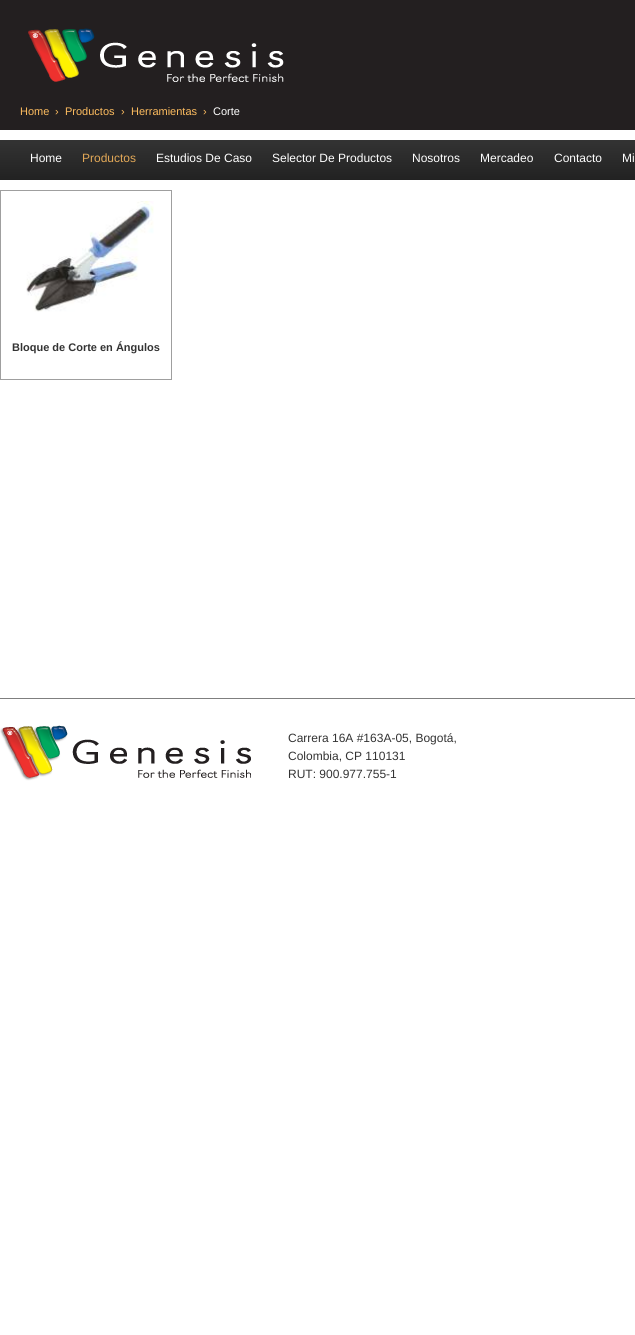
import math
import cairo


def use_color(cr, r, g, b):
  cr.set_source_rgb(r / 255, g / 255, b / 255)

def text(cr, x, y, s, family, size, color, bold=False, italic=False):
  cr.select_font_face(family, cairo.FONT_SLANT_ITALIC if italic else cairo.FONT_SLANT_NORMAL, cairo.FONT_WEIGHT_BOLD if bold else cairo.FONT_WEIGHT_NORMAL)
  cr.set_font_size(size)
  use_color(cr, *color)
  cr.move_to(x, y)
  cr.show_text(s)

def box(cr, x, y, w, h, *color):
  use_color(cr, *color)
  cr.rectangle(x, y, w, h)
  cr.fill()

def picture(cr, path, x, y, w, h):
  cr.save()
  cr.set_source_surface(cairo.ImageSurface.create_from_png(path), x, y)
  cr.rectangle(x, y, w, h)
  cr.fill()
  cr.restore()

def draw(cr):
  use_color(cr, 255, 255, 255)
  cr.paint()
  box(cr, 0, 0, 635, 130, 35, 31, 32)
  picture(cr, "img_01.png", 28, 28, 256, 54)
  gradient = cairo.LinearGradient(470, 140, 470, 180)
  gradient.add_color_stop_rgba(0, 0.2, 0.2, 0.2, 1)
  gradient.add_color_stop_rgba(1, 0.133, 0.133, 0.133, 1)
  cr.set_source(gradient)
  cr.rectangle(0, 140, 635, 40)
  cr.fill()
  cr.rectangle(0.5, 190.5, 171, 189)
  use_color(cr, 159, 159, 159)
  cr.set_line_width(1)
  cr.stroke()
  picture(cr, "img_02.png", 26, 201, 128, 111)
  box(cr, 0, 698, 635, 1, 127, 127, 127)
  picture(cr, "img_03.png", 0, 725, 251, 56)
  text(cr, 20, 115, "Home", "Liberation Sans", 11, (253, 188, 95))
  text(cr, 55, 115, "›", "Liberation Sans", 11, (253, 188, 95))
  text(cr, 65, 115, "Productos", "Liberation Sans", 11, (253, 188, 95))
  text(cr, 121, 115, "›", "Liberation Sans", 11, (253, 188, 95))
  text(cr, 131, 115, "Herramientas", "Liberation Sans", 11, (253, 188, 95))
  text(cr, 203, 115, "›", "Liberation Sans", 11, (253, 188, 95))
  text(cr, 213, 115, "Corte", "Liberation Sans", 11, (255, 255, 255))
  text(cr, 30, 162, "Home", "Liberation Sans", 12, (255, 255, 255))
  text(cr, 82, 162, "Productos", "Liberation Sans", 12, (226, 168, 87))
  text(cr, 156, 162, "Estudios De Caso", "Liberation Sans", 12, (255, 255, 255))
  text(cr, 272, 162, "Selector De Productos", "Liberation Sans", 12, (255, 255, 255))
  text(cr, 412, 162, "Nosotros", "Liberation Sans", 12, (255, 255, 255))
  text(cr, 480, 162, "Mercadeo", "Liberation Sans", 12, (255, 255, 255))
  text(cr, 554, 162, "Contacto", "Liberation Sans", 12, (255, 255, 255))
  text(cr, 622, 162, "Mi", "Liberation Sans", 12, (255, 255, 255))
  text(cr, 12, 351, "Bloque de Corte en Ángulos", "Liberation Sans", 11, (51, 51, 51), bold=True)
  text(cr, 288, 742, "Carrera 16A #163A-05, Bogotá,", "Liberation Sans", 12, (51, 51, 51))
  text(cr, 288, 760, "Colombia, CP 110131", "Liberation Sans", 12, (51, 51, 51))
  text(cr, 288, 778, "RUT: 900.977.755-1", "Liberation Sans", 12, (51, 51, 51))


surface = cairo.ImageSurface(cairo.FORMAT_RGB24, 635, 1335)
cr = cairo.Context(surface)
options = cairo.FontOptions()
options.set_hint_metrics(cairo.HINT_METRICS_OFF)
options.set_hint_style(cairo.HINT_STYLE_NONE)
cr.set_font_options(options)
cr.set_miter_limit(4)
draw(cr)
surface.write_to_png("out.png")
